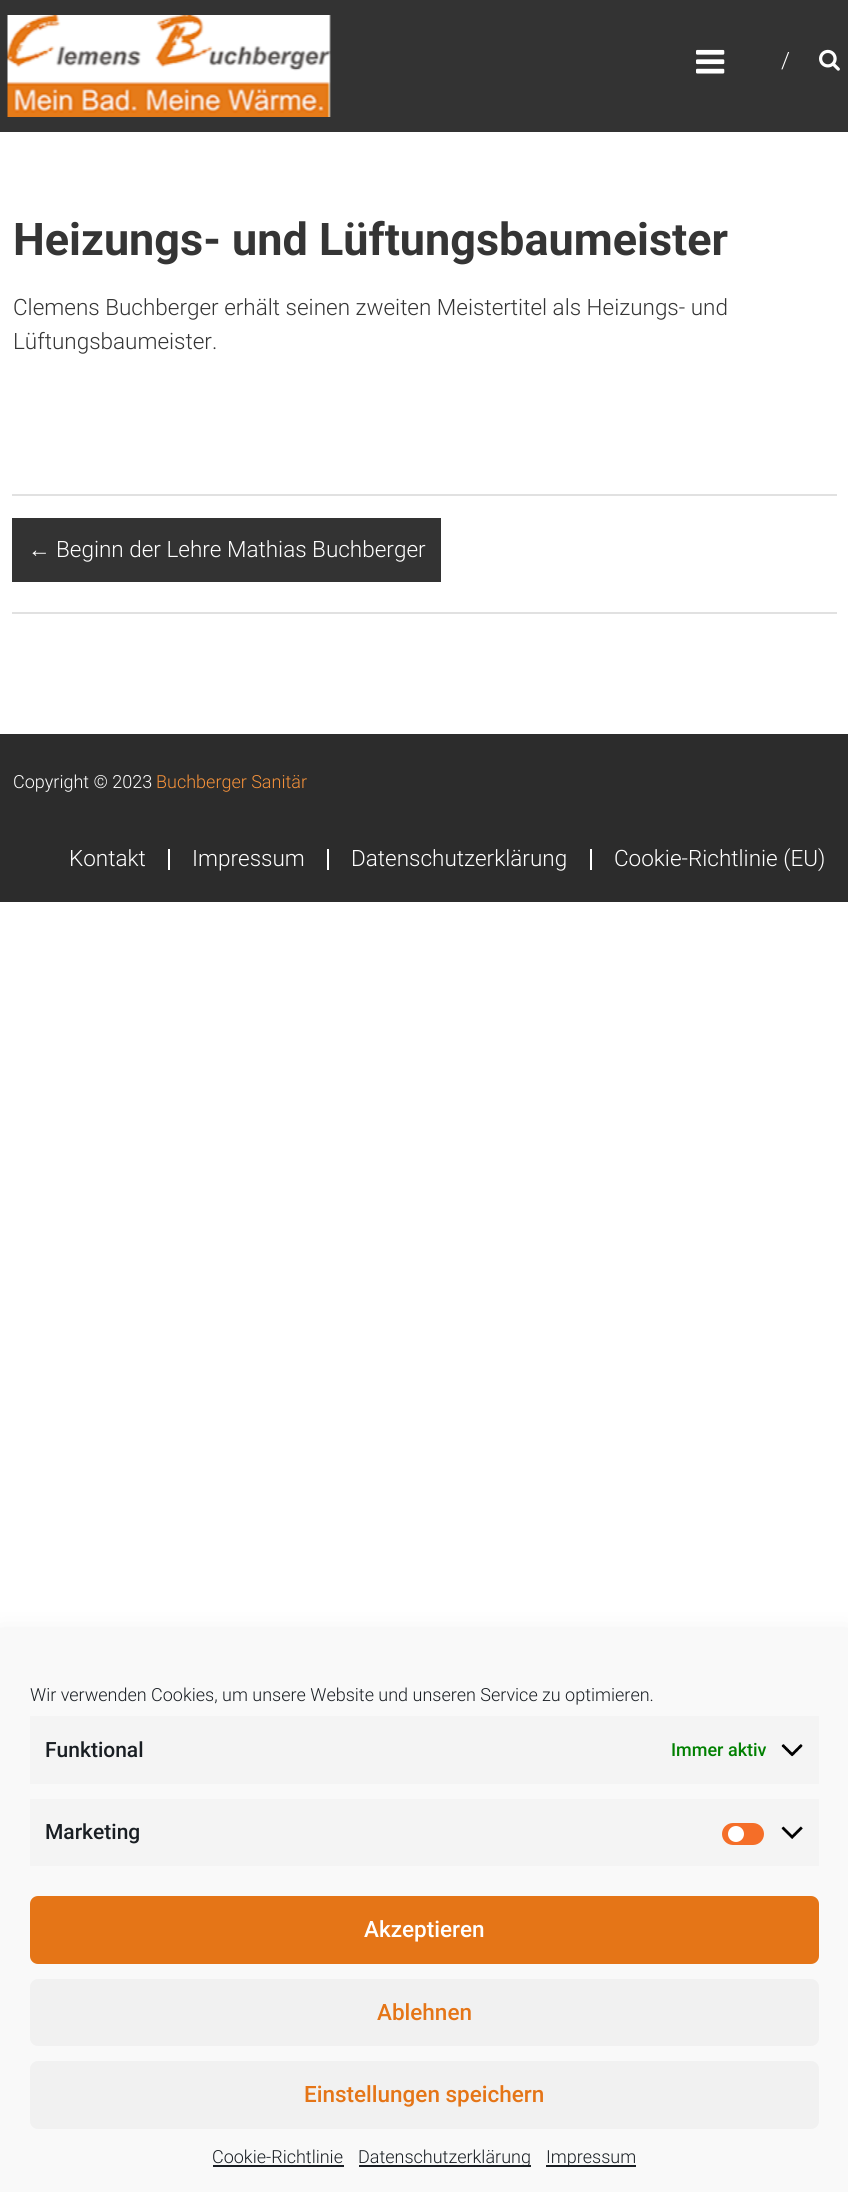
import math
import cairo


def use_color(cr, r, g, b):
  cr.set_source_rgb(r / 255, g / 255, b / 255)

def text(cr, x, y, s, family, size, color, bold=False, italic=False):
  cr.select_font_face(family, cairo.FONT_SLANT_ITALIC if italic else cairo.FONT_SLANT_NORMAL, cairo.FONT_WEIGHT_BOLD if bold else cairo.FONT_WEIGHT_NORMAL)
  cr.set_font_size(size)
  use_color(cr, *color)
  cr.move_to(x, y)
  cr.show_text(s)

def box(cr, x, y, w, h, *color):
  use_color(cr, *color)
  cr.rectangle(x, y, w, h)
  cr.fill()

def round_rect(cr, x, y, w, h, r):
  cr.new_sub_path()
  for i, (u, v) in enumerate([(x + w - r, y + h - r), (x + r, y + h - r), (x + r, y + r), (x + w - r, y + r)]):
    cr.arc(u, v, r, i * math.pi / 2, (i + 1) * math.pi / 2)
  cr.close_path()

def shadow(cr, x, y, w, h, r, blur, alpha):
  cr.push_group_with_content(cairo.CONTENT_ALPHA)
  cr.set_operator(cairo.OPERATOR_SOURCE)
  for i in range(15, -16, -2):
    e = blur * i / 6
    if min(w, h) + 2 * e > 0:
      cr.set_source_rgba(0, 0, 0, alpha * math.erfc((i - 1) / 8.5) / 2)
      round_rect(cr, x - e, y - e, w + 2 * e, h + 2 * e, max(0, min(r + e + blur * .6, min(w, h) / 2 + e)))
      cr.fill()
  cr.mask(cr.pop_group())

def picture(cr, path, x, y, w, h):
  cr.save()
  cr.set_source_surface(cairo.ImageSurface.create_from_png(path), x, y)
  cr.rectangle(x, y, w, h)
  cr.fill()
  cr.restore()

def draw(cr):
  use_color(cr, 255, 255, 255)
  cr.paint()
  box(cr, 0, 0, 848, 132, 51, 51, 51)
  picture(cr, "img_01.png", 7, 15, 324, 102)
  picture(cr, "img_02.png", 696, 49, 29, 25)
  picture(cr, "img_03.png", 819, 49, 21, 22)
  box(cr, 12, 494, 825, 2, 225, 225, 225)
  box(cr, 12, 612, 825, 2, 225, 225, 225)
  box(cr, 12, 518, 429, 64, 51, 51, 51)
  box(cr, 0, 734, 848, 168, 44, 44, 44)
  box(cr, 168, 849, 2, 21, 255, 255, 255)
  box(cr, 327, 849, 2, 21, 255, 255, 255)
  box(cr, 590, 849, 2, 21, 255, 255, 255)
  use_color(cr, 0, 0, 0)
  shadow(cr, 0, 1644, 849, 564, 0, 15, 0.19)
  box(cr, 0, 1630, 848, 562, 249, 249, 249)
  box(cr, 30, 1716, 789, 68, 244, 244, 244)
  picture(cr, "img_04.png", 781, 1744, 22, 13)
  box(cr, 30, 1799, 789, 67, 244, 244, 244)
  use_color(cr, 245, 110, 40)
  round_rect(cr, 722, 1823, 42, 22, 11)
  cr.fill()
  use_color(cr, 255, 255, 255)
  cr.arc(736, 1834, 8, 0, 2 * math.pi)
  cr.fill()
  picture(cr, "img_05.png", 781, 1826, 22, 13)
  use_color(cr, 229, 117, 23)
  round_rect(cr, 31, 1897, 787, 66, 7)
  cr.fill_preserve()
  cr.stroke()
  use_color(cr, 241, 241, 241)
  round_rect(cr, 30, 1979, 789, 67, 8)
  cr.fill()
  round_rect(cr, 30, 2061, 789, 68, 8)
  cr.fill()
  box(cr, 213, 2165, 131, 2, 25, 30, 35)
  box(cr, 359, 2165, 172, 2, 25, 30, 35)
  box(cr, 546, 2165, 90, 2, 25, 30, 35)
  text(cr, 781, 68, "/", "Roboto Light", 22.5, (255, 255, 255))
  text(cr, 13, 255, "Heizungs- und Lüftungsbaumeister", "Roboto", 45, (53, 53, 53), bold=True)
  text(cr, 13, 315, "Clemens Buchberger erhält seinen zweiten Meistertitel als Heizungs- und", "Roboto Light", 22.5, (53, 53, 53))
  text(cr, 13, 349, "Lüftungsbaumeister.", "Roboto Light", 22.5, (53, 53, 53))
  text(cr, 28, 557, "←", "Liberation Sans", 22.5, (255, 255, 255))
  text(cr, 56, 557, "Beginn der Lehre Mathias Buchberger", "Roboto Light", 22.5, (255, 255, 255))
  text(cr, 13, 788, "Copyright © 2023", "Roboto Light", 18, (255, 255, 255))
  text(cr, 156, 788, "Buchberger Sanitär", "Roboto Light", 18, (244, 145, 58))
  text(cr, 69, 866, "Kontakt", "Roboto Light", 22.5, (255, 255, 255))
  text(cr, 192, 866, "Impressum", "Roboto Light", 22.5, (255, 255, 255))
  text(cr, 351, 866, "Datenschutzerklärung", "Roboto Light", 22.5, (255, 255, 255))
  text(cr, 614, 866, "Cookie-Richtlinie (EU)", "Roboto Light", 22.5, (255, 255, 255))
  text(cr, 30, 1701, "Wir verwenden Cookies, um unsere Website und unseren Service zu optimieren.", "Roboto Light", 18, (25, 30, 35))
  text(cr, 45, 1757, "Funktional", "Roboto Medium", 21, (25, 30, 35))
  text(cr, 671, 1756, "Immer aktiv", "Roboto Medium", 18, (0, 128, 0))
  text(cr, 45, 1839, "Marketing", "Roboto Medium", 21, (25, 30, 35))
  text(cr, 364, 1937, "Akzeptieren", "Roboto Medium", 22.5, (255, 255, 255))
  text(cr, 377, 2020, "Ablehnen", "Roboto Medium", 22.5, (229, 117, 23))
  text(cr, 304, 2102, "Einstellungen speichern", "Roboto Medium", 22.5, (229, 117, 23))
  text(cr, 212, 2163, "Cookie-Richtlinie", "Roboto Light", 18, (25, 30, 35))
  text(cr, 358, 2163, "Datenschutzerklärung", "Roboto Light", 18, (25, 30, 35))
  text(cr, 546, 2163, "Impressum", "Roboto Light", 18, (25, 30, 35))


surface = cairo.ImageSurface(cairo.FORMAT_RGB24, 848, 2192)
cr = cairo.Context(surface)
options = cairo.FontOptions()
options.set_hint_metrics(cairo.HINT_METRICS_OFF)
options.set_hint_style(cairo.HINT_STYLE_NONE)
cr.set_font_options(options)
cr.set_miter_limit(4)
draw(cr)
surface.write_to_png("out.png")
